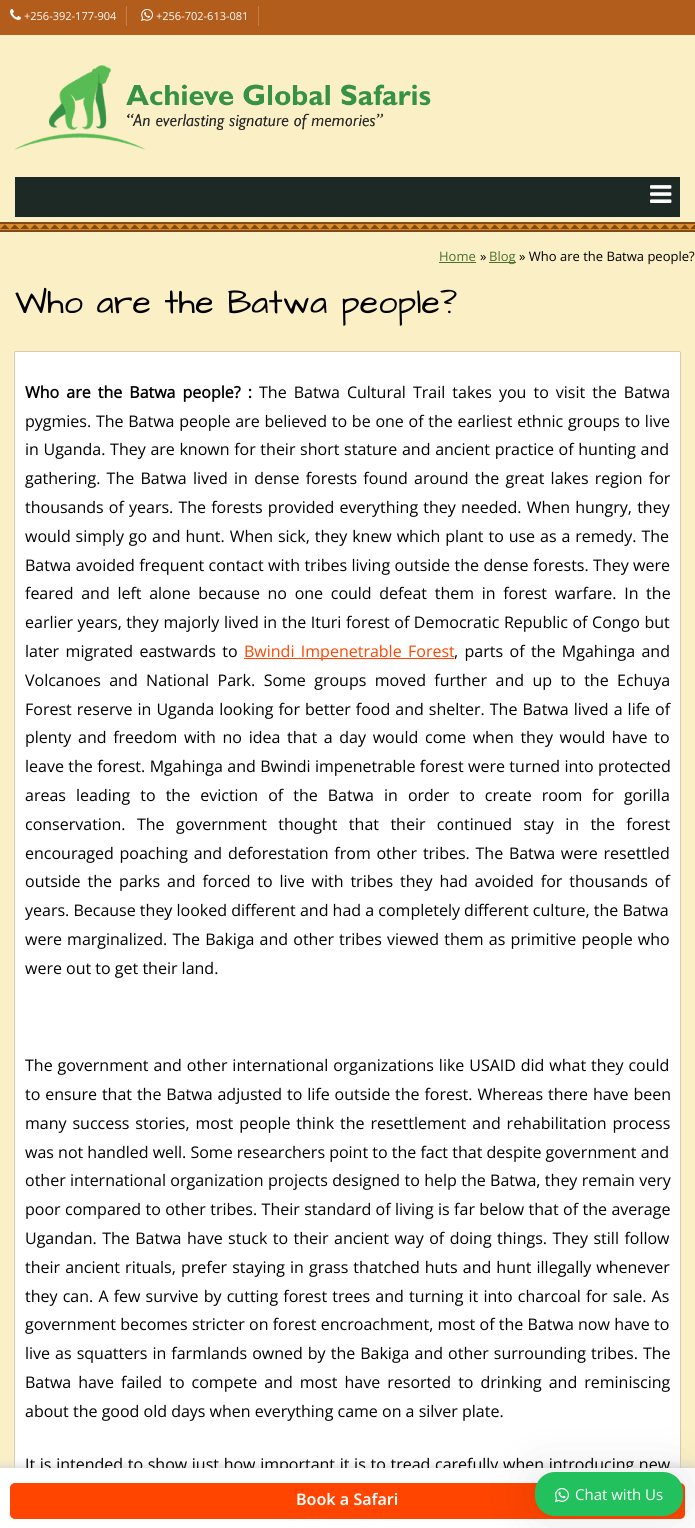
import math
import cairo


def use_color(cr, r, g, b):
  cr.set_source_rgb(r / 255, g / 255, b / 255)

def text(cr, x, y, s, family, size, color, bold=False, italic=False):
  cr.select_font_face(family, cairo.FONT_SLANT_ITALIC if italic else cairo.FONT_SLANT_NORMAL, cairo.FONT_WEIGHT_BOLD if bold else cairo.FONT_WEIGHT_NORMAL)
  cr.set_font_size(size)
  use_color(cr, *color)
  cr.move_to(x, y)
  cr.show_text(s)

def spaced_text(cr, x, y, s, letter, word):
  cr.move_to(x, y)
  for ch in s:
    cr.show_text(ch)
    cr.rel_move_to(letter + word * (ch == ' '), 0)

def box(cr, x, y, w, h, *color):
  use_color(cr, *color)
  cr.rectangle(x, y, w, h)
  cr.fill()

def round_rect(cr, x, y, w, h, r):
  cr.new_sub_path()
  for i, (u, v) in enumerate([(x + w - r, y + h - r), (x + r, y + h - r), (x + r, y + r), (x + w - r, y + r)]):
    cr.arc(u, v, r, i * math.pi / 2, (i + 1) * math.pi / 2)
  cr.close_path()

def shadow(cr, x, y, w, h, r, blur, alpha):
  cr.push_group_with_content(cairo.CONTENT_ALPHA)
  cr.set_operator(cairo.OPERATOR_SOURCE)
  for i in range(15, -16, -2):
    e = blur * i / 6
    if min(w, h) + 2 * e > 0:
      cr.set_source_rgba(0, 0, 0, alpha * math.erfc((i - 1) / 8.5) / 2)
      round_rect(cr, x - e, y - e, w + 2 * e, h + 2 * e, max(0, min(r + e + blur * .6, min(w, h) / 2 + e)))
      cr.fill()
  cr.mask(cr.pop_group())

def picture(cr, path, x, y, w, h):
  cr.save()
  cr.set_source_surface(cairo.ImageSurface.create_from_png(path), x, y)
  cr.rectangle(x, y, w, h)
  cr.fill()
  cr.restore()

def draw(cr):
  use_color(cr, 251, 239, 197)
  cr.paint()
  box(cr, 0, 0, 695, 35, 179, 93, 28)
  box(cr, 126, 6, 1, 20, 194, 125, 73)
  picture(cr, "img_01.png", 10, 9, 11, 11)
  box(cr, 258, 6, 1, 20, 194, 125, 73)
  picture(cr, "img_02.png", 141, 9, 12, 12)
  picture(cr, "img_03.png", 15, 65, 416, 85)
  box(cr, 15, 177, 665, 40, 28, 41, 37)
  picture(cr, "img_04.png", 650, 185, 22, 18)
  picture(cr, "img_05.png", 0, 222, 695, 10)
  box(cr, 439, 262, 37, 1, 74, 113, 46)
  box(cr, 489, 262, 27, 1, 74, 113, 46)
  use_color(cr, 102, 102, 102)
  shadow(cr, 15, 352, 665, 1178, 0, 0.5, 1)
  box(cr, 15, 352, 665, 1116, 255, 255, 255)
  box(cr, 244, 658, 210, 1, 255, 69, 0)
  use_color(cr, 208, 208, 208)
  shadow(cr, 0, 1467, 695, 60, 0, 5, 1)
  text(cr, 24, 20, "+256-392-177-904", "Open Sans", 11, (255, 255, 255))
  text(cr, 156, 20, "+256-702-613-081", "Open Sans", 11, (255, 255, 255))
  text(cr, 439, 261, "Home", "Open Sans", 13, (74, 113, 46))
  text(cr, 480, 261, "»", "Open Sans", 13, (0, 0, 0))
  text(cr, 489, 261, "Blog", "Open Sans", 13, (74, 113, 46))
  text(cr, 519, 261, "» Who are the Batwa people?", "Open Sans", 13, (0, 0, 0))
  text(cr, 15, 313, "Who are the Batwa people?", "Architects Daughter", 34, (0, 0, 0))
  cr.select_font_face("Open Sans", cairo.FONT_SLANT_NORMAL, cairo.FONT_WEIGHT_BOLD)
  cr.set_font_size(16)
  spaced_text(cr, 25, 398, "Who are the Batwa people? :", 0, 2.9)
  cr.select_font_face("Open Sans")
  spaced_text(cr, 259, 398, "The Batwa Cultural Trail takes you to visit the Batwa", 0, 2.9)
  spaced_text(cr, 25, 427, "pygmies. The Batwa people are believed to be one of the earliest ethnic groups to live", 0, 0.6)
  spaced_text(cr, 25, 455, "in Uganda. They are known for their short stature and ancient practice of hunting and", 0, 0.5)
  spaced_text(cr, 25, 484, "gathering. The Batwa lived in dense forests found around the great lakes region for", 0, 2.1)
  spaced_text(cr, 25, 513, "thousands of years. The forests provided everything they needed. When hungry, they", 0, 1)
  spaced_text(cr, 25, 542, "would simply go and hunt. When sick, they knew which plant to use as a remedy. The", 0, 0.75)
  spaced_text(cr, 25, 571, "Batwa avoided frequent contact with tribes living outside the dense forests. They were", 0, 0.25)
  spaced_text(cr, 25, 599, "feared and left alone because no one could defeat them in forest warfare. In the", 0, 3.5)
  spaced_text(cr, 25, 628, "earlier years, they majorly lived in the Ituri forest of Democratic Republic of Congo but", 0, 0.4)
  spaced_text(cr, 25, 657, "later migrated eastwards to", 0, 2.25)
  use_color(cr, 255, 69, 0)
  spaced_text(cr, 244, 657, "Bwindi Impenetrable Forest", 0, 2.25)
  use_color(cr, 0, 0, 0)
  spaced_text(cr, 454, 657, ", parts of the Mgahinga and", 0, 2.25)
  spaced_text(cr, 25, 686, "Volcanoes and National Park. Some groups moved further and up to the Echuya", 0, 4.25)
  spaced_text(cr, 25, 715, "Forest reserve in Uganda looking for better food and shelter. The Batwa lived a life of", 0, 0.9)
  spaced_text(cr, 25, 743, "plenty and freedom with no idea that a day would come when they would have to", 0, 2.5)
  spaced_text(cr, 25, 772, "leave the forest. Mgahinga and Bwindi impenetrable forest were turned into protected", 0, 0.25)
  spaced_text(cr, 25, 801, "areas leading to the eviction of the Batwa in order to create room for gorilla", 0, 5.9)
  spaced_text(cr, 25, 830, "conservation. The government thought that their continued stay in the forest", 0, 7.25)
  spaced_text(cr, 25, 859, "encouraged poaching and deforestation from other tribes. The Batwa were resettled", 0, 1.6)
  spaced_text(cr, 25, 887, "outside the parks and forced to live with tribes they had avoided for thousands of", 0, 2.75)
  text(cr, 25, 916, "years. Because they looked different and had a completely different culture, the Batwa", "Open Sans", 16, (0, 0, 0))
  spaced_text(cr, 25, 945, "were marginalized. The Bakiga and other tribes viewed them as primitive people who", 0, 1)
  text(cr, 25, 974, "were out to get their land.", "Open Sans", 16, (0, 0, 0))
  spaced_text(cr, 25, 1071, "The government and other international organizations like USAID did what they could", 0, 0.75)
  spaced_text(cr, 25, 1100, "to ensure that the Batwa adjusted to life outside the forest. Whereas there have been", 0, 0.75)
  spaced_text(cr, 25, 1129, "many success stories, most people think the resettlement and rehabilitation process", 0, 1.75)
  text(cr, 25, 1158, "was not handled well. Some researchers point to the fact that despite government and", "Open Sans", 16, (0, 0, 0))
  spaced_text(cr, 25, 1186, "other international organization projects designed to help the Batwa, they remain very", 0, 0.25)
  spaced_text(cr, 25, 1215, "poor compared to other tribes. Their standard of living is far below that of the average", 0, 0.25)
  spaced_text(cr, 25, 1244, "Ugandan. The Batwa have stuck to their ancient way of doing things. They still follow", 0, 1.3)
  spaced_text(cr, 25, 1273, "their ancient rituals, prefer staying in grass thatched huts and hunt illegally whenever", 0, 0.9)
  spaced_text(cr, 25, 1302, "they can. A few survive by cutting forest trees and turning it into charcoal for sale. As", 0, 1)
  spaced_text(cr, 25, 1330, "government becomes stricter on forest encroachment, most of the Batwa now have to", 0, 0.1)
  spaced_text(cr, 25, 1359, "live as squatters in farmlands owned by the Bakiga and other surrounding tribes. The", 0, 0.9)
  spaced_text(cr, 25, 1388, "Batwa have failed to compete and most have resorted to drinking and reminiscing", 0, 2.9)
  text(cr, 25, 1417, "about the good old days when everything came on a silver plate.", "Open Sans", 16, (0, 0, 0))
  spaced_text(cr, 25, 1470, "It is intended to show just how important it is to tread carefully when introducing new", 0, 0.5)
  box(cr, 0, 1468, 695, 60, 255, 255, 255)
  use_color(cr, 255, 69, 0)
  round_rect(cr, 10, 1483, 675, 36, 5)
  cr.fill()
  text(cr, 296, 1505, "Book a Safari", "Noto Sans SemiBold", 16, (255, 255, 255))
  use_color(cr, 0, 0, 0)
  shadow(cr, 535, 1472, 148, 44, 20, 25, 0.1)
  use_color(cr, 34, 193, 94)
  round_rect(cr, 535, 1472, 148, 44, 20)
  cr.fill()
  picture(cr, "img_06.png", 555, 1488, 14, 14)
  text(cr, 575, 1500, "Chat with Us", "Open Sans", 15, (255, 255, 255))


surface = cairo.ImageSurface(cairo.FORMAT_RGB24, 695, 1528)
cr = cairo.Context(surface)
options = cairo.FontOptions()
options.set_hint_metrics(cairo.HINT_METRICS_OFF)
options.set_hint_style(cairo.HINT_STYLE_NONE)
cr.set_font_options(options)
cr.set_miter_limit(4)
draw(cr)
surface.write_to_png("out.png")
